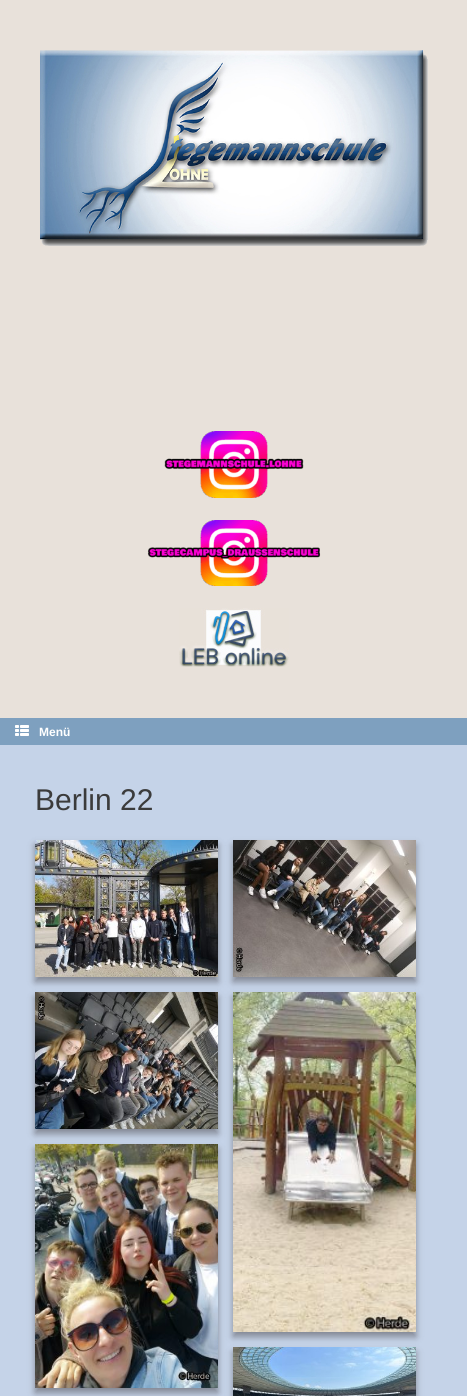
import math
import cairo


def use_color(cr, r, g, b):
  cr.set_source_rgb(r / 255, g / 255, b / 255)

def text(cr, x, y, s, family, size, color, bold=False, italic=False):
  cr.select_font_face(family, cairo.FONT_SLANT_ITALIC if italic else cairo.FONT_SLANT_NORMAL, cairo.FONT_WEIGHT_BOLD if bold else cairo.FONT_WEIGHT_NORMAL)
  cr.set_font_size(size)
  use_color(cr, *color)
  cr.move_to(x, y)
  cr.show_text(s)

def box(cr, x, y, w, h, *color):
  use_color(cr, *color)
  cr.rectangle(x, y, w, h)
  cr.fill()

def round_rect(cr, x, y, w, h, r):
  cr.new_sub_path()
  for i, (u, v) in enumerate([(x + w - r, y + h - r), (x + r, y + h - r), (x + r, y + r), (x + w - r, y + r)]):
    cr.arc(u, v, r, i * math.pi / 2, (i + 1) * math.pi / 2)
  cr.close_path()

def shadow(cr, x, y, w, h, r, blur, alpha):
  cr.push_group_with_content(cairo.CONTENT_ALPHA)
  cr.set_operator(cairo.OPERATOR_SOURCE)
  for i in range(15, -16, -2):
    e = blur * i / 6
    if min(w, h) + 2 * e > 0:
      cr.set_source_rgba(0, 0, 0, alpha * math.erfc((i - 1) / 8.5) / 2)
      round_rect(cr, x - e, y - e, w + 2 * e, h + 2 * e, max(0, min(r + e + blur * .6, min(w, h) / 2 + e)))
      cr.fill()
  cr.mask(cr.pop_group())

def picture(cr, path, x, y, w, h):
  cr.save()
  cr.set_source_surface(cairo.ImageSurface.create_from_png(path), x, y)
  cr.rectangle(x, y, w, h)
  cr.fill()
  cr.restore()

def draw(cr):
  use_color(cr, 232, 225, 218)
  cr.paint()
  picture(cr, "img_01.png", 40, 50, 388, 196)
  picture(cr, "img_02.png", 164, 431, 140, 67)
  picture(cr, "img_03.png", 147, 520, 174, 66)
  picture(cr, "img_04.png", 179, 608, 110, 59)
  box(cr, 0, 718, 467, 27, 126, 160, 191)
  picture(cr, "img_05.png", 15, 725, 14, 11)
  box(cr, 0, 745, 467, 651, 197, 211, 232)
  use_color(cr, 34, 25, 25)
  shadow(cr, 35, 845, 183, 137, 0, 3.5, 0.4)
  picture(cr, "img_06.png", 35, 840, 183, 137)
  shadow(cr, 233, 845, 183, 137, 0, 3.5, 0.4)
  picture(cr, "img_07.png", 233, 840, 183, 137)
  shadow(cr, 35, 997, 183, 137, 0, 3.5, 0.4)
  picture(cr, "img_08.png", 35, 992, 183, 137)
  shadow(cr, 233, 997, 183, 340, 0, 3.5, 0.4)
  picture(cr, "img_09.png", 233, 992, 183, 340)
  shadow(cr, 35, 1149, 183, 244, 0, 3.5, 0.4)
  picture(cr, "img_10.png", 35, 1144, 183, 244)
  shadow(cr, 233, 1352, 183, 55, 0, 3.5, 0.4)
  picture(cr, "img_11.png", 233, 1347, 183, 49)
  text(cr, 39, 736, "Menü", "Liberation Sans", 12, (255, 255, 255), bold=True)
  text(cr, 35, 810, "Berlin 22", "Liberation Sans", 30, (59, 59, 59))


surface = cairo.ImageSurface(cairo.FORMAT_RGB24, 467, 1396)
cr = cairo.Context(surface)
options = cairo.FontOptions()
options.set_hint_metrics(cairo.HINT_METRICS_OFF)
options.set_hint_style(cairo.HINT_STYLE_NONE)
cr.set_font_options(options)
cr.set_miter_limit(4)
draw(cr)
surface.write_to_png("out.png")
